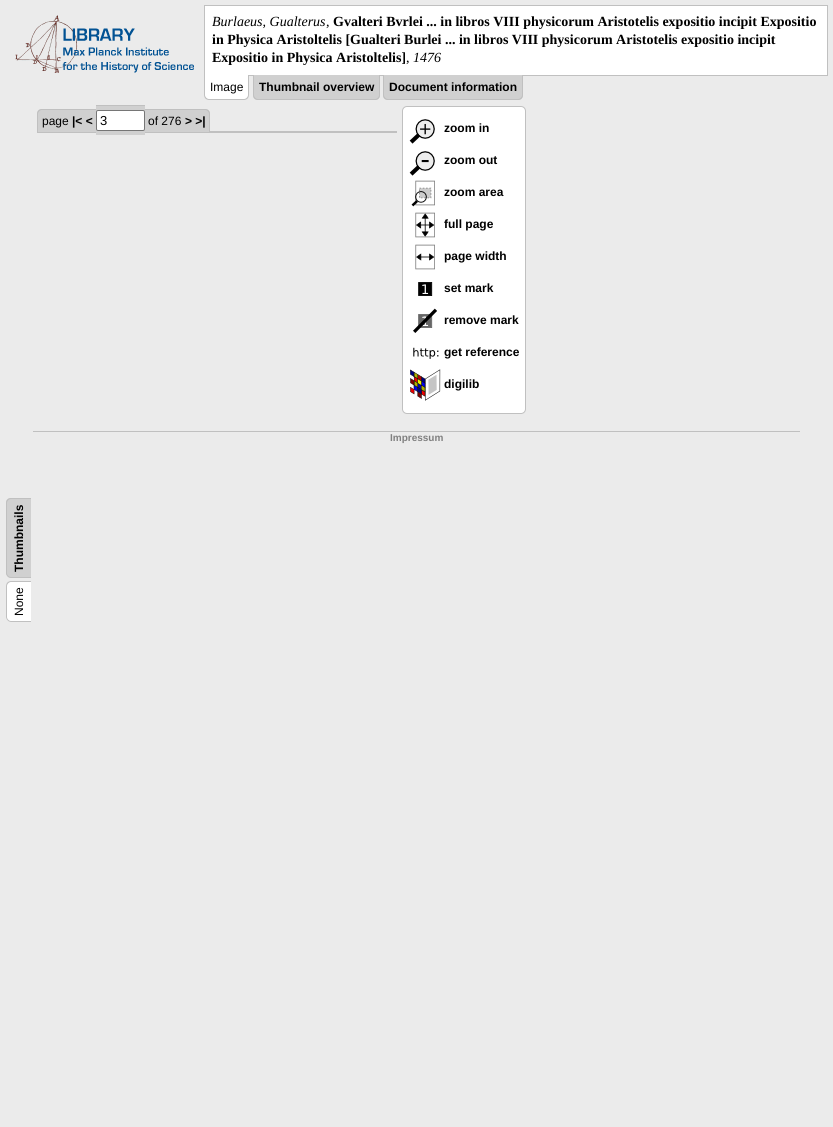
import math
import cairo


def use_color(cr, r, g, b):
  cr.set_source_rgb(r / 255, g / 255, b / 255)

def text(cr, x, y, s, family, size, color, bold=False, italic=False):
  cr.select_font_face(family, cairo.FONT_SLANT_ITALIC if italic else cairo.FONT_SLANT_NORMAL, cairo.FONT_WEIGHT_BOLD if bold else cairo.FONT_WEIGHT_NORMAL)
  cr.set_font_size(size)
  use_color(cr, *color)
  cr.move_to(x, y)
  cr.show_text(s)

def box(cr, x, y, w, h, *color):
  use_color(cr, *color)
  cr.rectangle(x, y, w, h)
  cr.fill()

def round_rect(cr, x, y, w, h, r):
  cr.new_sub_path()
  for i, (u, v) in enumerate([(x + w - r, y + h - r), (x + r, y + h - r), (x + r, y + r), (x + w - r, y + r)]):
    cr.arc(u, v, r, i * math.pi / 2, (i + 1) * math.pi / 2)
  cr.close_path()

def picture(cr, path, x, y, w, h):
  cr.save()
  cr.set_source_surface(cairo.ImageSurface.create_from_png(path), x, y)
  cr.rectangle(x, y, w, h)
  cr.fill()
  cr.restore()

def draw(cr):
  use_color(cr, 235, 235, 235)
  cr.paint()
  picture(cr, "img_01.png", 15, 15, 179, 58)
  use_color(cr, 255, 255, 255)
  cr.rectangle(204.5, 5.5, 623, 70)
  cr.fill_preserve()
  use_color(cr, 192, 192, 192)
  cr.set_line_width(1)
  cr.stroke()
  use_color(cr, 255, 255, 255)
  cr.new_path()
  cr.move_to(204, 75)
  cr.line_to(249, 75)
  cr.line_to(249, 95)
  cr.curve_to(249, 98, 247, 100, 244, 100)
  cr.line_to(209, 100)
  cr.curve_to(206, 100, 204, 98, 204, 95)
  cr.close_path()
  cr.fill()
  use_color(cr, 192, 192, 192)
  cr.set_fill_rule(cairo.FILL_RULE_EVEN_ODD)
  cr.new_path()
  cr.move_to(204, 75)
  cr.line_to(249, 75)
  cr.line_to(249, 95)
  cr.curve_to(249, 98, 247, 100, 244, 100)
  cr.line_to(209, 100)
  cr.curve_to(206, 100, 204, 98, 204, 95)
  cr.close_path()
  cr.move_to(205, 75)
  cr.line_to(248, 75)
  cr.line_to(248, 95)
  cr.curve_to(248, 97, 246, 99, 244, 99)
  cr.line_to(209, 99)
  cr.curve_to(207, 99, 205, 97, 205, 95)
  cr.close_path()
  cr.fill()
  use_color(cr, 208, 208, 208)
  cr.new_path()
  cr.move_to(253, 75)
  cr.line_to(380, 75)
  cr.line_to(380, 95)
  cr.curve_to(380, 98, 378, 100, 375, 100)
  cr.line_to(258, 100)
  cr.curve_to(255, 100, 253, 98, 253, 95)
  cr.close_path()
  cr.fill()
  use_color(cr, 192, 192, 192)
  cr.new_path()
  cr.move_to(253, 75)
  cr.line_to(380, 75)
  cr.line_to(380, 95)
  cr.curve_to(380, 98, 378, 100, 375, 100)
  cr.line_to(258, 100)
  cr.curve_to(255, 100, 253, 98, 253, 95)
  cr.close_path()
  cr.move_to(254, 75)
  cr.line_to(379, 75)
  cr.line_to(379, 95)
  cr.curve_to(379, 97, 377, 99, 375, 99)
  cr.line_to(258, 99)
  cr.curve_to(256, 99, 254, 97, 254, 95)
  cr.close_path()
  cr.fill()
  use_color(cr, 208, 208, 208)
  cr.new_path()
  cr.move_to(383, 75)
  cr.line_to(523, 75)
  cr.line_to(523, 95)
  cr.curve_to(523, 98, 521, 100, 518, 100)
  cr.line_to(388, 100)
  cr.curve_to(385, 100, 383, 98, 383, 95)
  cr.close_path()
  cr.fill()
  use_color(cr, 192, 192, 192)
  cr.new_path()
  cr.move_to(383, 75)
  cr.line_to(523, 75)
  cr.line_to(523, 95)
  cr.curve_to(523, 98, 521, 100, 518, 100)
  cr.line_to(388, 100)
  cr.curve_to(385, 100, 383, 98, 383, 95)
  cr.close_path()
  cr.move_to(384, 75)
  cr.line_to(522, 75)
  cr.line_to(522, 95)
  cr.curve_to(522, 97, 520, 99, 518, 99)
  cr.line_to(388, 99)
  cr.curve_to(386, 99, 384, 97, 384, 95)
  cr.close_path()
  cr.fill()
  box(cr, 37, 131, 360, 2, 192, 192, 192)
  use_color(cr, 208, 208, 208)
  cr.new_path()
  cr.move_to(42, 109)
  cr.line_to(72, 109)
  cr.line_to(72, 132)
  cr.line_to(37, 132)
  cr.line_to(37, 114)
  cr.curve_to(37, 111, 39, 109, 42, 109)
  cr.close_path()
  cr.fill()
  use_color(cr, 192, 192, 192)
  cr.new_path()
  cr.move_to(42, 109)
  cr.line_to(72, 109)
  cr.line_to(72, 132)
  cr.line_to(37, 132)
  cr.line_to(37, 114)
  cr.curve_to(37, 111, 39, 109, 42, 109)
  cr.close_path()
  cr.move_to(42, 110)
  cr.line_to(72, 110)
  cr.line_to(72, 132)
  cr.line_to(38, 132)
  cr.line_to(38, 114)
  cr.curve_to(38, 112, 40, 110, 42, 110)
  cr.close_path()
  cr.fill()
  box(cr, 72, 110, 10, 22, 208, 208, 208)
  box(cr, 72, 109, 10, 1, 192, 192, 192)
  box(cr, 82, 109, 14, 23, 208, 208, 208)
  box(cr, 82, 109, 14, 1, 192, 192, 192)
  box(cr, 96, 106, 49, 29, 208, 208, 208)
  box(cr, 96, 105, 49, 1, 192, 192, 192)
  box(cr, 145, 109, 3, 23, 208, 208, 208)
  box(cr, 145, 109, 40, 1, 192, 192, 192)
  box(cr, 148, 110, 37, 22, 208, 208, 208)
  box(cr, 185, 109, 10, 23, 208, 208, 208)
  box(cr, 185, 109, 10, 1, 192, 192, 192)
  use_color(cr, 208, 208, 208)
  cr.new_path()
  cr.move_to(195, 109)
  cr.line_to(205, 109)
  cr.curve_to(208, 109, 210, 111, 210, 114)
  cr.line_to(210, 132)
  cr.line_to(195, 132)
  cr.close_path()
  cr.fill()
  use_color(cr, 192, 192, 192)
  cr.new_path()
  cr.move_to(195, 109)
  cr.line_to(205, 109)
  cr.curve_to(208, 109, 210, 111, 210, 114)
  cr.line_to(210, 132)
  cr.line_to(195, 132)
  cr.close_path()
  cr.move_to(195, 110)
  cr.line_to(205, 110)
  cr.curve_to(207, 110, 209, 112, 209, 114)
  cr.line_to(209, 132)
  cr.line_to(195, 132)
  cr.close_path()
  cr.fill()
  use_color(cr, 255, 255, 255)
  round_rect(cr, 96.5, 110.5, 48, 20, 1.5)
  cr.fill_preserve()
  use_color(cr, 118, 118, 118)
  cr.stroke()
  use_color(cr, 255, 255, 255)
  round_rect(cr, 402.5, 106.5, 123, 307, 4.5)
  cr.fill_preserve()
  use_color(cr, 192, 192, 192)
  cr.stroke()
  picture(cr, "img_02.png", 409, 119, 26, 25)
  picture(cr, "img_03.png", 409, 151, 26, 25)
  picture(cr, "img_04.png", 411, 180, 24, 27)
  picture(cr, "img_05.png", 415, 212, 20, 26)
  picture(cr, "img_06.png", 415, 244, 20, 26)
  picture(cr, "img_07.png", 418, 282, 15, 14)
  picture(cr, "img_08.png", 413, 308, 24, 25)
  picture(cr, "img_09.png", 413, 347, 26, 12)
  picture(cr, "img_10.png", 410, 369, 31, 32)
  use_color(cr, 208, 208, 208)
  cr.set_fill_rule(cairo.FILL_RULE_WINDING)
  cr.new_path()
  cr.move_to(6, 573)
  cr.line_to(6, 503)
  cr.curve_to(6, 500, 8, 498, 11, 498)
  cr.line_to(31, 498)
  cr.line_to(31, 578)
  cr.line_to(11, 578)
  cr.curve_to(8, 578, 6, 575, 6, 573)
  cr.close_path()
  cr.fill()
  use_color(cr, 192, 192, 192)
  cr.set_fill_rule(cairo.FILL_RULE_EVEN_ODD)
  cr.new_path()
  cr.move_to(6, 573)
  cr.line_to(6, 503)
  cr.curve_to(6, 500, 8, 498, 11, 498)
  cr.line_to(31, 498)
  cr.line_to(31, 578)
  cr.line_to(11, 578)
  cr.curve_to(8, 578, 6, 575, 6, 573)
  cr.close_path()
  cr.move_to(7, 573)
  cr.line_to(7, 503)
  cr.curve_to(7, 501, 9, 499, 11, 499)
  cr.line_to(31, 499)
  cr.line_to(31, 577)
  cr.line_to(11, 577)
  cr.curve_to(9, 577, 7, 575, 7, 573)
  cr.close_path()
  cr.fill()
  use_color(cr, 255, 255, 255)
  cr.set_fill_rule(cairo.FILL_RULE_WINDING)
  cr.new_path()
  cr.move_to(6, 617)
  cr.line_to(6, 586)
  cr.curve_to(6, 583, 8, 581, 11, 581)
  cr.line_to(31, 581)
  cr.line_to(31, 622)
  cr.line_to(11, 622)
  cr.curve_to(8, 622, 6, 619, 6, 617)
  cr.close_path()
  cr.fill()
  use_color(cr, 192, 192, 192)
  cr.set_fill_rule(cairo.FILL_RULE_EVEN_ODD)
  cr.new_path()
  cr.move_to(6, 617)
  cr.line_to(6, 586)
  cr.curve_to(6, 583, 8, 581, 11, 581)
  cr.line_to(31, 581)
  cr.line_to(31, 622)
  cr.line_to(11, 622)
  cr.curve_to(8, 622, 6, 619, 6, 617)
  cr.close_path()
  cr.move_to(7, 617)
  cr.line_to(7, 586)
  cr.curve_to(7, 584, 9, 582, 11, 582)
  cr.line_to(31, 582)
  cr.line_to(31, 621)
  cr.line_to(11, 621)
  cr.curve_to(9, 621, 7, 619, 7, 617)
  cr.close_path()
  cr.fill()
  box(cr, 33, 431, 767, 1, 192, 192, 192)
  text(cr, 212, 26, "Burlaeus, Gualterus", "Liberation Serif", 14, (0, 0, 0), italic=True)
  text(cr, 326, 26, ",", "Liberation Serif", 14, (0, 0, 0))
  text(cr, 333, 26, "Gvalteri Bvrlei ... in libros VIII physicorum Aristotelis expositio incipit Expositio", "Liberation Serif", 14, (0, 0, 0), bold=True)
  text(cr, 212, 44, "in Physica Aristoltelis [Gualteri Burlei ... in libros VIII physicorum Aristotelis expositio incipit", "Liberation Serif", 14, (0, 0, 0), bold=True)
  text(cr, 212, 62, "Expositio in Physica Aristoltelis]", "Liberation Serif", 14, (0, 0, 0), bold=True)
  text(cr, 406, 62, ",", "Liberation Serif", 14, (0, 0, 0))
  text(cr, 413, 62, "1476", "Liberation Serif", 14, (0, 0, 0), italic=True)
  text(cr, 210, 91, "Image", "Liberation Sans", 12, (0, 0, 0))
  text(cr, 259, 91, "Thumbnail overview", "Liberation Sans", 12, (0, 0, 0), bold=True)
  text(cr, 389, 91, "Document information", "Liberation Sans", 12, (0, 0, 0), bold=True)
  text(cr, 42, 125, "page", "Liberation Sans", 12, (0, 0, 0))
  text(cr, 72, 125, "|< <", "Liberation Sans", 12, (0, 0, 0), bold=True)
  text(cr, 100, 125, "3", "Liberation Sans", 13, (0, 0, 0))
  text(cr, 148, 125, "of 276", "Liberation Sans", 12, (0, 0, 0))
  text(cr, 185, 125, "> >|", "Liberation Sans", 12, (0, 0, 0), bold=True)
  text(cr, 444, 132, "zoom in", "Liberation Sans", 12, (0, 0, 0), bold=True)
  text(cr, 444, 164, "zoom out", "Liberation Sans", 12, (0, 0, 0), bold=True)
  text(cr, 444, 196, "zoom area", "Liberation Sans", 12, (0, 0, 0), bold=True)
  text(cr, 444, 228, "full page", "Liberation Sans", 12, (0, 0, 0), bold=True)
  text(cr, 444, 260, "page width", "Liberation Sans", 12, (0, 0, 0), bold=True)
  text(cr, 444, 292, "set mark", "Liberation Sans", 12, (0, 0, 0), bold=True)
  text(cr, 444, 324, "remove mark", "Liberation Sans", 12, (0, 0, 0), bold=True)
  text(cr, 444, 356, "get reference", "Liberation Sans", 12, (0, 0, 0), bold=True)
  text(cr, 444, 388, "digilib", "Liberation Sans", 12, (0, 0, 0), bold=True)
  cr.save()
  cr.translate(23, 572)
  cr.rotate(-90 * math.pi / 180)
  text(cr, 0, 0, "Thumbnails", "Liberation Sans", 12, (0, 0, 0), bold=True)
  cr.restore()
  cr.save()
  cr.translate(23, 616)
  cr.rotate(-90 * math.pi / 180)
  text(cr, 0, 0, "None", "Liberation Sans", 12, (0, 0, 0))
  cr.restore()
  text(cr, 390, 441, "Impressum", "Liberation Sans", 10, (128, 128, 128), bold=True)


surface = cairo.ImageSurface(cairo.FORMAT_RGB24, 833, 1127)
cr = cairo.Context(surface)
options = cairo.FontOptions()
options.set_hint_metrics(cairo.HINT_METRICS_OFF)
options.set_hint_style(cairo.HINT_STYLE_NONE)
cr.set_font_options(options)
cr.set_miter_limit(4)
draw(cr)
surface.write_to_png("out.png")
